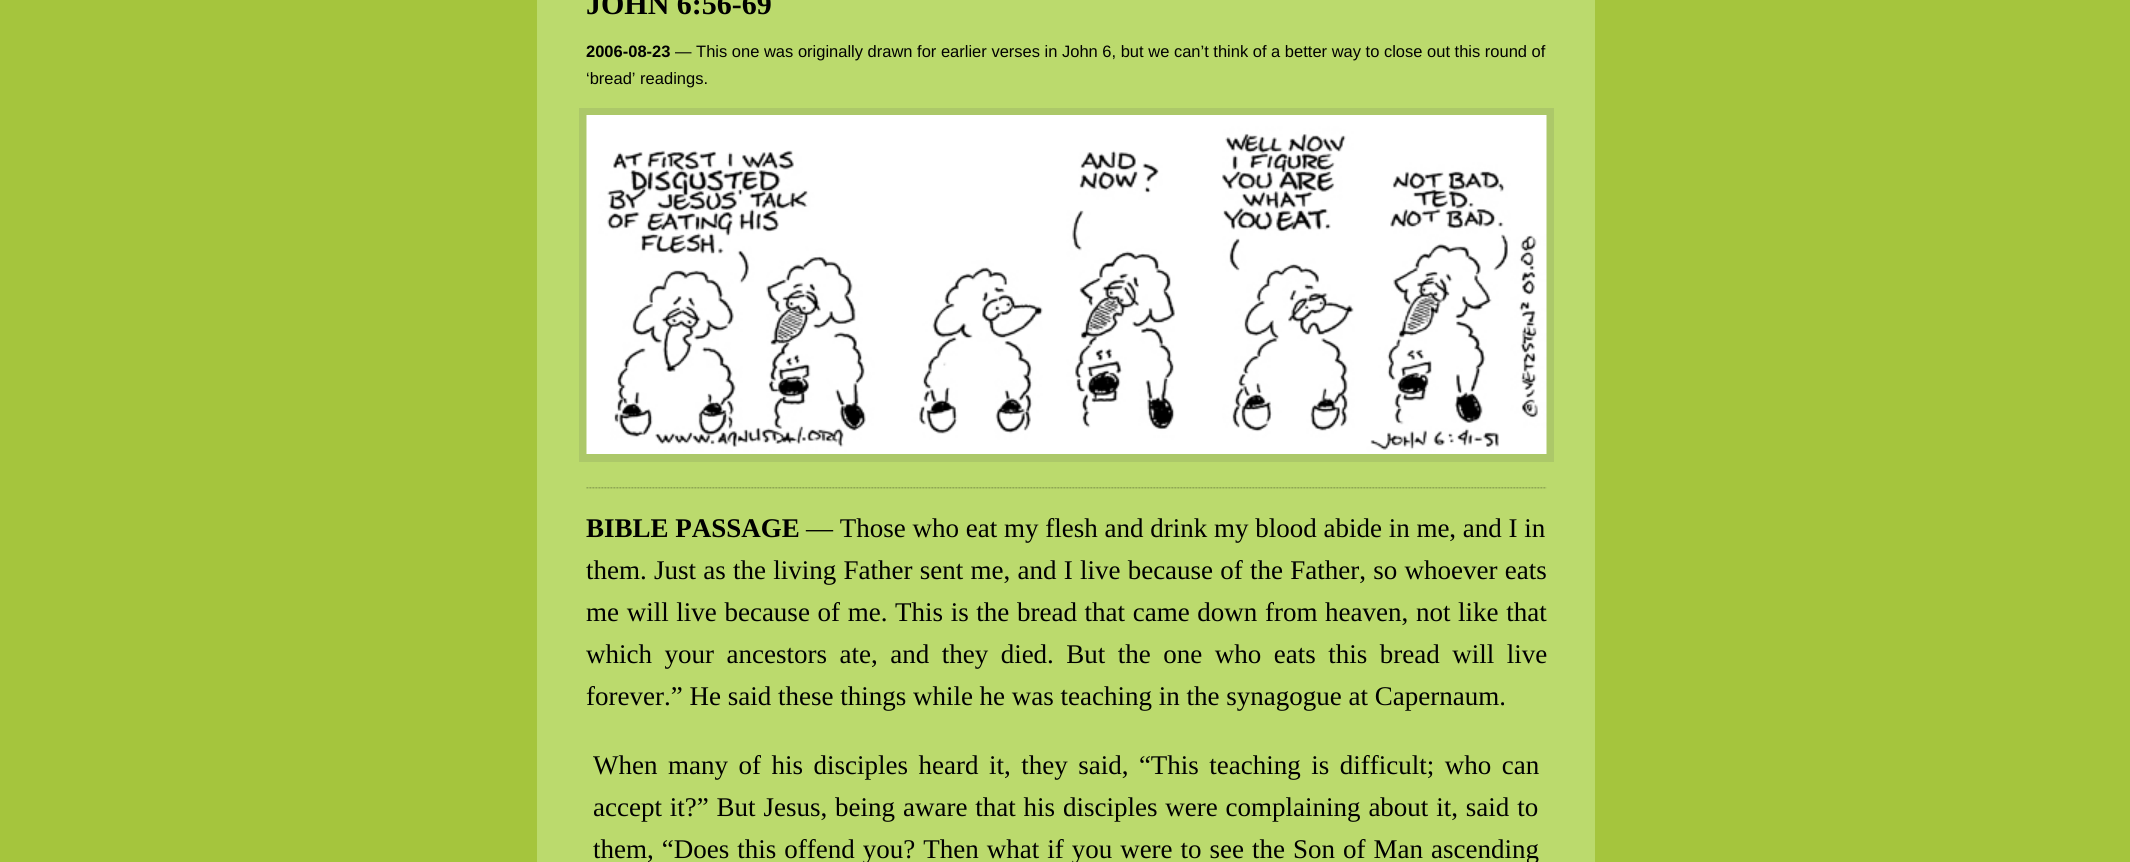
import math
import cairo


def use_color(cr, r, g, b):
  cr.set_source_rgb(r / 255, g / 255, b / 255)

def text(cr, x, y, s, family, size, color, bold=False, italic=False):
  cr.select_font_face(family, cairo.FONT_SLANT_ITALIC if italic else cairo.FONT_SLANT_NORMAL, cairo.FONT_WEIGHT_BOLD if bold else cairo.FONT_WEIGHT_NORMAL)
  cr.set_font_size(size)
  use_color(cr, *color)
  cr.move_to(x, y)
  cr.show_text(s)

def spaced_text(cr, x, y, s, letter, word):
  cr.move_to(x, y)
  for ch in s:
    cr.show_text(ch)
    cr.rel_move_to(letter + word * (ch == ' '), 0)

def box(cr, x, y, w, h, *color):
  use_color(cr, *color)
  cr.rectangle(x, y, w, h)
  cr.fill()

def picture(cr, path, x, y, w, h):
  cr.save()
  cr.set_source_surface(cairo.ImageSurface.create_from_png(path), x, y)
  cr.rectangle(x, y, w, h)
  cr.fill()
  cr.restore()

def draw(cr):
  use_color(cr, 165, 197, 61)
  cr.paint()
  box(cr, 537, 0, 1058, 862, 187, 218, 109)
  cr.rectangle(583, 112, 967, 346)
  use_color(cr, 172, 200, 105)
  cr.set_line_width(8)
  cr.stroke()
  picture(cr, "img_01.png", 586, 115, 961, 339)
  picture(cr, "img_02.png", 586, 487, 961, 2)
  text(cr, 586, 14, "JOHN 6:56-69", "Liberation Serif", 30, (0, 0, 0), bold=True)
  text(cr, 586, 57, "2006-08-23", "Liberation Sans", 16.5, (0, 0, 0), bold=True)
  text(cr, 675, 57, "— This one was originally drawn for earlier verses in John 6, but we can’t think of a better way to close out this round of", "Liberation Sans", 16.5, (0, 0, 0))
  text(cr, 586, 84, "‘bread’ readings.", "Liberation Sans", 16.5, (0, 0, 0))
  text(cr, 586, 537, "BIBLE PASSAGE", "Liberation Serif", 27, (0, 0, 0), bold=True)
  text(cr, 806, 537, "— Those who eat my flesh and drink my blood abide in me, and I in", "Liberation Serif", 27, (0, 0, 0))
  spaced_text(cr, 586, 579, "them. Just as the living Father sent me, and I live because of the Father, so whoever eats", 0, 0.5)
  spaced_text(cr, 586, 621, "me will live because of me. This is the bread that came down from heaven, not like that", 0, 0.9)
  spaced_text(cr, 586, 663, "which your ancestors ate, and they died. But the one who eats this bread will live", 0, 5.75)
  text(cr, 586, 705, "forever.” He said these things while he was teaching in the synagogue at Capernaum.", "Liberation Serif", 27, (0, 0, 0))
  spaced_text(cr, 593, 774, "When many of his disciples heard it, they said, “This teaching is difficult; who can", 0, 3.75)
  spaced_text(cr, 593, 816, "accept it?” But Jesus, being aware that his disciples were complaining about it, said to", 0, 1.1)
  spaced_text(cr, 593, 858, "them, “Does this offend you? Then what if you were to see the Son of Man ascending", 0, 1.25)


surface = cairo.ImageSurface(cairo.FORMAT_RGB24, 2130, 862)
cr = cairo.Context(surface)
options = cairo.FontOptions()
options.set_hint_metrics(cairo.HINT_METRICS_OFF)
options.set_hint_style(cairo.HINT_STYLE_NONE)
cr.set_font_options(options)
cr.set_miter_limit(4)
draw(cr)
surface.write_to_png("out.png")
